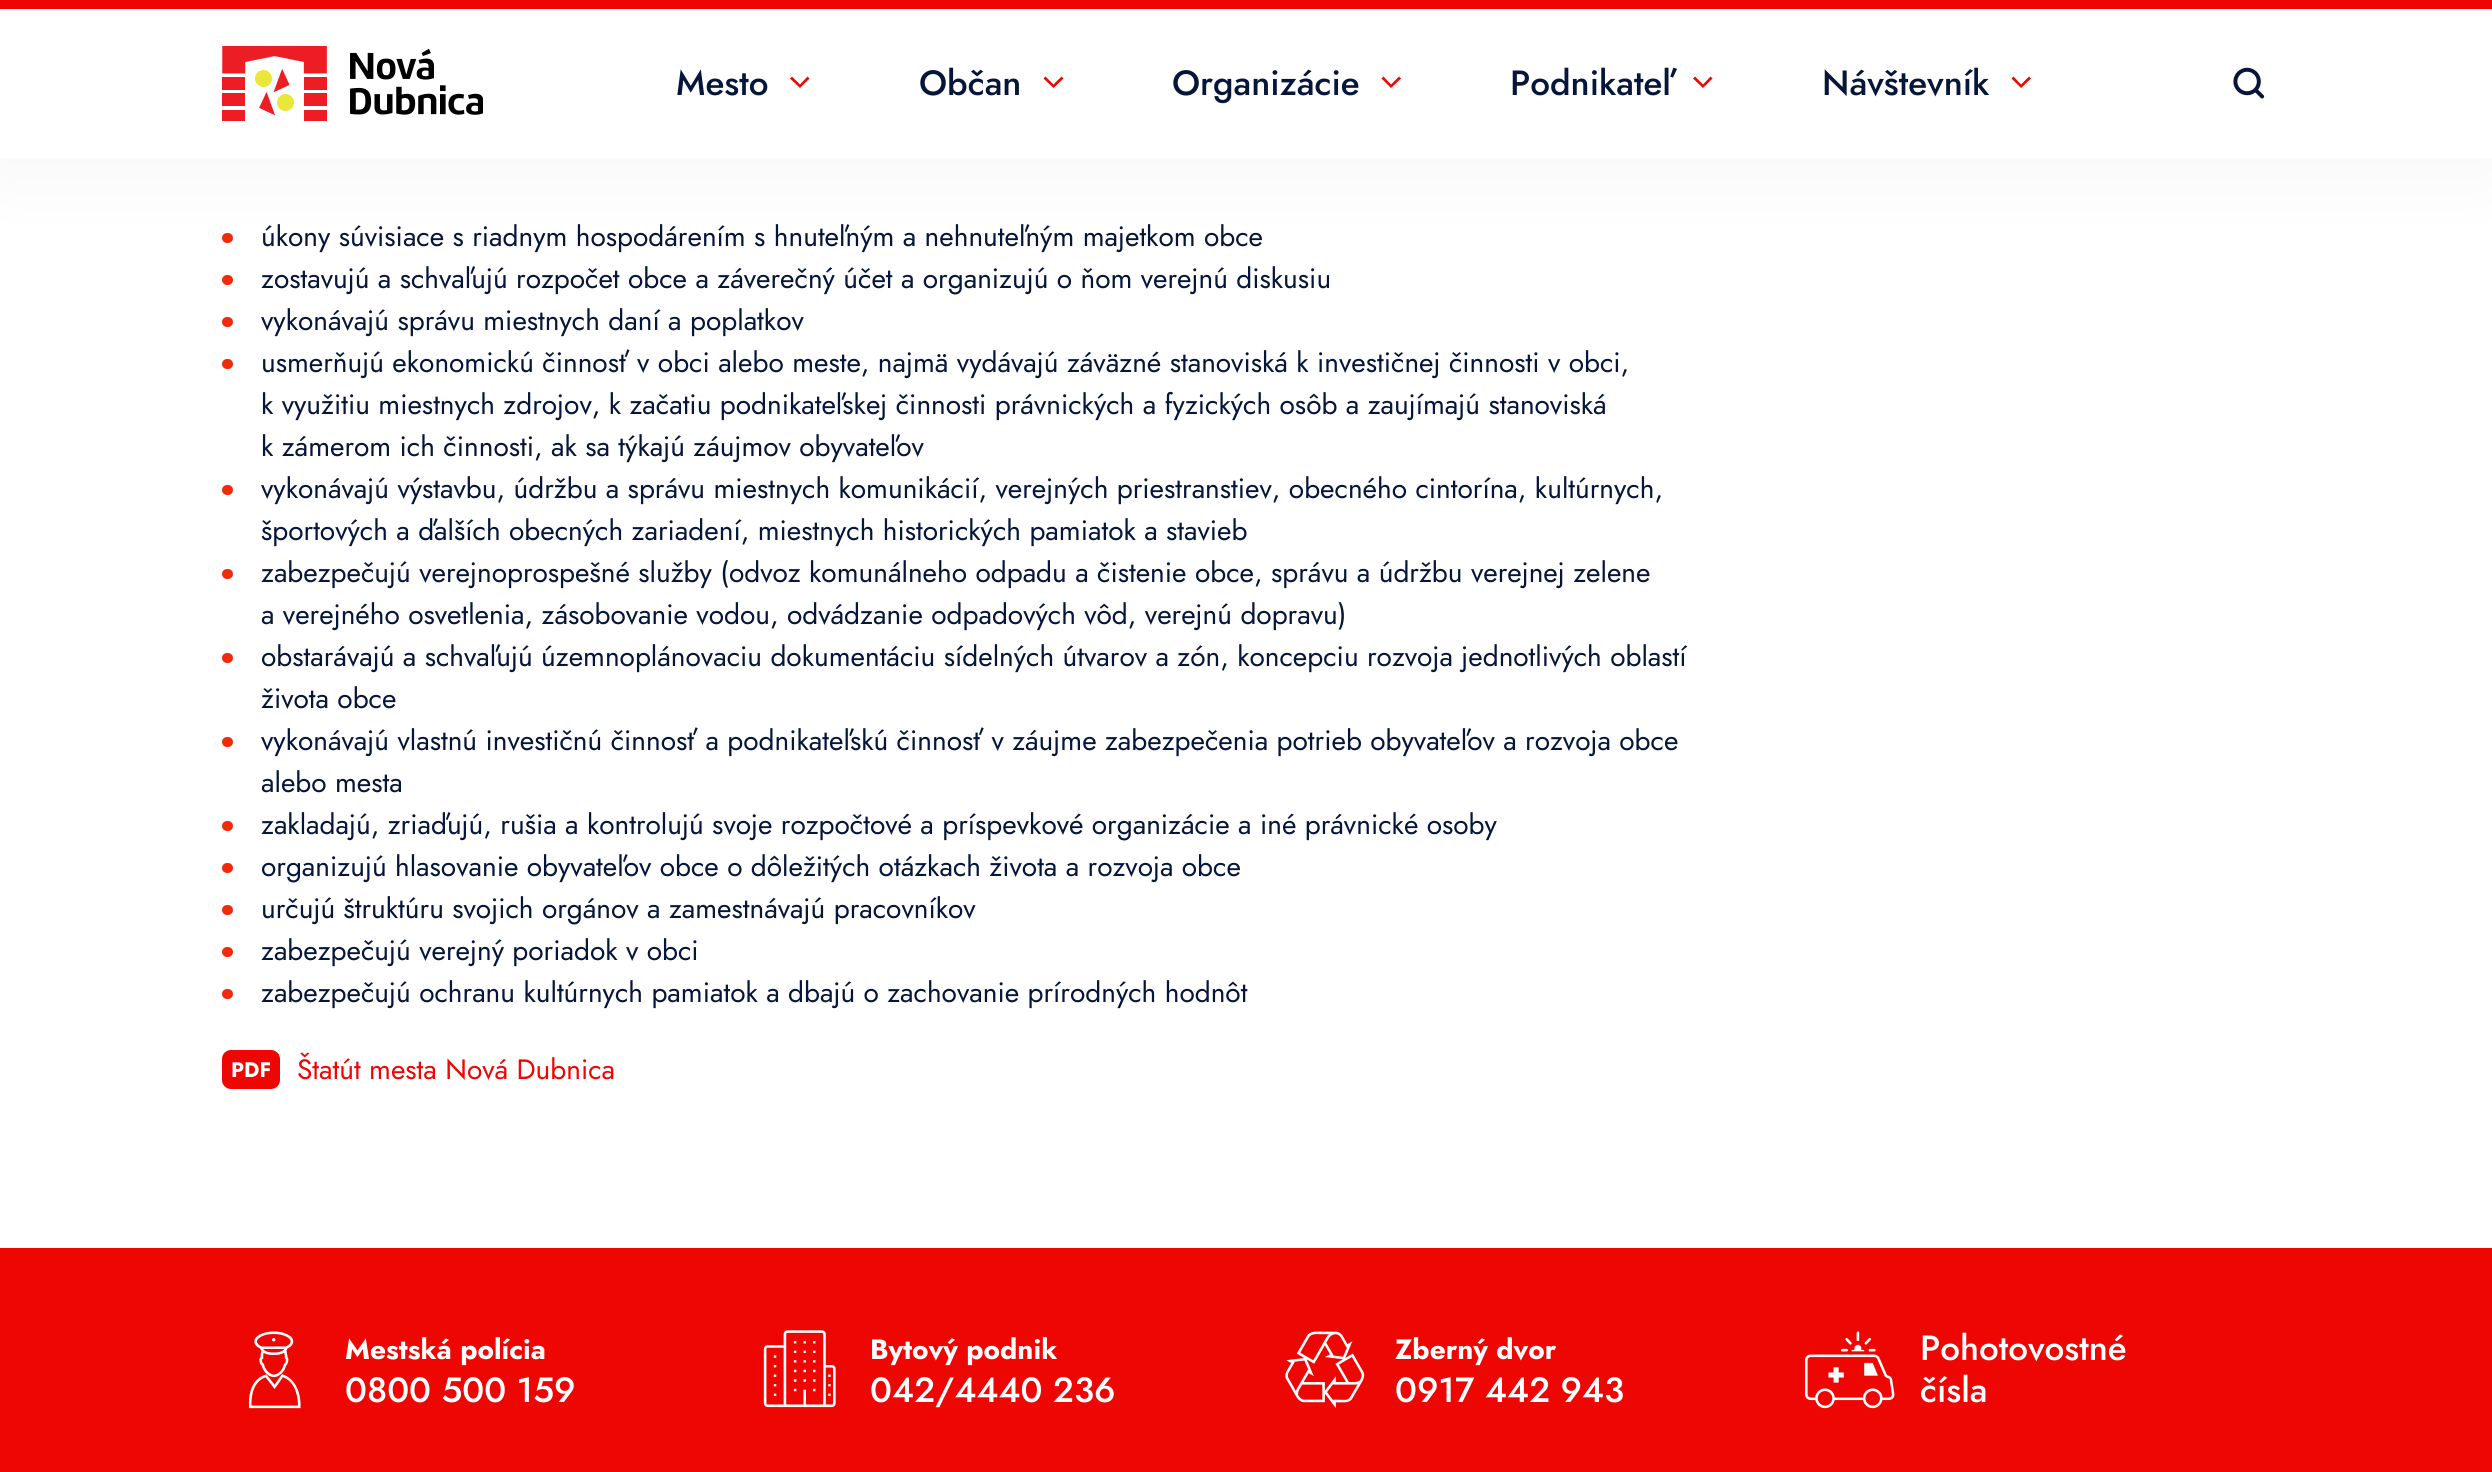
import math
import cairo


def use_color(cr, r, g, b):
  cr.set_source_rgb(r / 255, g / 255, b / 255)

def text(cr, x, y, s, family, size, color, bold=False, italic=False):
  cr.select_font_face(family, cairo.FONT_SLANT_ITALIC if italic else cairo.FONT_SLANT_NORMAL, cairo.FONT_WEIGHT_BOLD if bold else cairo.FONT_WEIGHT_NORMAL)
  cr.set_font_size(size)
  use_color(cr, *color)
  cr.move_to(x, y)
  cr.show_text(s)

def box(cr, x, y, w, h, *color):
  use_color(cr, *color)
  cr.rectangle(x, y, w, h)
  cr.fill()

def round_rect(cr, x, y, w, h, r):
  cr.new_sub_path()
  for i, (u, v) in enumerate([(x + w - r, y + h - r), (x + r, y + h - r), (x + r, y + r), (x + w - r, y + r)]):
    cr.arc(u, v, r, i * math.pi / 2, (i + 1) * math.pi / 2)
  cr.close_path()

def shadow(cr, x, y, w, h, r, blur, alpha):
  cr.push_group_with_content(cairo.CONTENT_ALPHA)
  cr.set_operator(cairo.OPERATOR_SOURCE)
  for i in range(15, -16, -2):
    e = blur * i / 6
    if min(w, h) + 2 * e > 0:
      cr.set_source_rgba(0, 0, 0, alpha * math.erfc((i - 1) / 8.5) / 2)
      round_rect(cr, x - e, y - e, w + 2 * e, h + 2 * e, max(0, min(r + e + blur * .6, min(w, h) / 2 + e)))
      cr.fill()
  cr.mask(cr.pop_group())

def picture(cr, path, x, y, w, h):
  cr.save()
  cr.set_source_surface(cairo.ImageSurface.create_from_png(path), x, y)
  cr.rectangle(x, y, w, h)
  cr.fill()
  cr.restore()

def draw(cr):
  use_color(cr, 255, 255, 255)
  cr.paint()
  use_color(cr, 238, 43, 11)
  round_rect(cr, 222, 233, 11, 10, 5)
  cr.fill()
  round_rect(cr, 222, 275, 11, 10, 5)
  cr.fill()
  use_color(cr, 6, 22, 58)
  shadow(cr, 0, 0, 2492, 158, 0, 44, 0.05)
  box(cr, 0, 9, 2492, 149, 255, 255, 255)
  box(cr, 0, 0, 2492, 9, 238, 6, 3)
  picture(cr, "img_01.png", 222, 46, 261, 75)
  cr.new_path()
  cr.move_to(790, 78.5)
  cr.line_to(800, 88)
  cr.line_to(809.5, 78.5)
  cr.line_to(807.5, 76.5)
  cr.line_to(800, 84.5)
  cr.line_to(792, 76.5)
  cr.close_path()
  cr.fill()
  cr.new_path()
  cr.move_to(1043.5, 78.5)
  cr.line_to(1053.5, 88)
  cr.line_to(1063.5, 78.5)
  cr.line_to(1061.5, 76.5)
  cr.line_to(1053.5, 84.5)
  cr.line_to(1045.5, 76.5)
  cr.close_path()
  cr.fill()
  cr.new_path()
  cr.move_to(1381.5, 78.5)
  cr.line_to(1391, 88)
  cr.line_to(1401, 78.5)
  cr.line_to(1399, 76.5)
  cr.line_to(1391, 84.5)
  cr.line_to(1383.5, 76.5)
  cr.close_path()
  cr.fill()
  cr.new_path()
  cr.move_to(1693, 78.5)
  cr.line_to(1703, 88)
  cr.line_to(1712.5, 78.5)
  cr.line_to(1710.5, 76.5)
  cr.line_to(1703, 84.5)
  cr.line_to(1695, 76.5)
  cr.close_path()
  cr.fill()
  cr.new_path()
  cr.move_to(2011.5, 78.5)
  cr.line_to(2021, 88)
  cr.line_to(2031, 78.5)
  cr.line_to(2029, 76.5)
  cr.line_to(2021, 84.5)
  cr.line_to(2013.5, 76.5)
  cr.close_path()
  cr.fill()
  picture(cr, "img_02.png", 2233, 67, 32, 32)
  use_color(cr, 238, 43, 11)
  round_rect(cr, 222, 317, 11, 10, 5)
  cr.fill()
  round_rect(cr, 222, 359, 11, 10, 5)
  cr.fill()
  round_rect(cr, 222, 485, 11, 10, 5)
  cr.fill()
  round_rect(cr, 222, 569, 11, 10, 5)
  cr.fill()
  round_rect(cr, 222, 653, 11, 10, 5)
  cr.fill()
  round_rect(cr, 222, 737, 11, 10, 5)
  cr.fill()
  round_rect(cr, 222, 821, 11, 10, 5)
  cr.fill()
  round_rect(cr, 222, 863, 11, 10, 5)
  cr.fill()
  round_rect(cr, 222, 905, 11, 10, 5)
  cr.fill()
  round_rect(cr, 222, 947, 11, 10, 5)
  cr.fill()
  round_rect(cr, 222, 989, 11, 10, 5)
  cr.fill()
  use_color(cr, 238, 6, 3)
  round_rect(cr, 222, 1050, 58, 39, 9)
  cr.fill()
  box(cr, 0, 1248, 2492, 224, 238, 6, 3)
  picture(cr, "img_03.png", 248, 1331, 53, 78)
  picture(cr, "img_04.png", 763, 1330, 73, 78)
  picture(cr, "img_05.png", 1285, 1331, 80, 77)
  picture(cr, "img_06.png", 1805, 1331, 90, 78)
  text(cr, 676, 95, "Mesto", "Jost Medium", 35, (6, 22, 58))
  text(cr, 919, 95, "Občan", "Jost Medium", 35, (6, 22, 58))
  text(cr, 1172, 95, "Organizácie", "Jost Medium", 35, (6, 22, 58))
  text(cr, 1510, 95, "Podnikateľ", "Jost Medium", 35, (6, 22, 58))
  text(cr, 1822, 95, "Návštevník", "Jost Medium", 35, (6, 22, 58))
  text(cr, 261, 246, "úkony súvisiace s riadnym hospodárením s hnuteľným a nehnuteľným majetkom obce", "Jost", 28, (6, 22, 58))
  text(cr, 261, 288, "zostavujú a schvaľujú rozpočet obce a záverečný účet a organizujú o ňom verejnú diskusiu", "Jost", 28, (6, 22, 58))
  text(cr, 261, 330, "vykonávajú správu miestnych daní a poplatkov", "Jost", 28, (6, 22, 58))
  text(cr, 261, 372, "usmerňujú ekonomickú činnosť v obci alebo meste, najmä vydávajú záväzné stanoviská k investičnej činnosti v obci,", "Jost", 28, (6, 22, 58))
  text(cr, 261, 414, "k využitiu miestnych zdrojov, k začatiu podnikateľskej činnosti právnických a fyzických osôb a zaujímajú stanoviská", "Jost", 28, (6, 22, 58))
  text(cr, 261, 456, "k zámerom ich činnosti, ak sa týkajú záujmov obyvateľov", "Jost", 28, (6, 22, 58))
  text(cr, 261, 498, "vykonávajú výstavbu, údržbu a správu miestnych komunikácií, verejných priestranstiev, obecného cintorína, kultúrnych,", "Jost", 28, (6, 22, 58))
  text(cr, 261, 540, "športových a ďalších obecných zariadení, miestnych historických pamiatok a stavieb", "Jost", 28, (6, 22, 58))
  text(cr, 261, 582, "zabezpečujú verejnoprospešné služby (odvoz komunálneho odpadu a čistenie obce, správu a údržbu verejnej zelene", "Jost", 28, (6, 22, 58))
  text(cr, 261, 624, "a verejného osvetlenia, zásobovanie vodou, odvádzanie odpadových vôd, verejnú dopravu)", "Jost", 28, (6, 22, 58))
  text(cr, 261, 666, "obstarávajú a schvaľujú územnoplánovaciu dokumentáciu sídelných útvarov a zón, koncepciu rozvoja jednotlivých oblastí", "Jost", 28, (6, 22, 58))
  text(cr, 261, 708, "života obce", "Jost", 28, (6, 22, 58))
  text(cr, 261, 750, "vykonávajú vlastnú investičnú činnosť a podnikateľskú činnosť v záujme zabezpečenia potrieb obyvateľov a rozvoja obce", "Jost", 28, (6, 22, 58))
  text(cr, 261, 792, "alebo mesta", "Jost", 28, (6, 22, 58))
  text(cr, 261, 834, "zakladajú, zriaďujú, rušia a kontrolujú svoje rozpočtové a príspevkové organizácie a iné právnické osoby", "Jost", 28, (6, 22, 58))
  text(cr, 261, 876, "organizujú hlasovanie obyvateľov obce o dôležitých otázkach života a rozvoja obce", "Jost", 28, (6, 22, 58))
  text(cr, 261, 918, "určujú štruktúru svojich orgánov a zamestnávajú pracovníkov", "Jost", 28, (6, 22, 58))
  text(cr, 261, 960, "zabezpečujú verejný poriadok v obci", "Jost", 28, (6, 22, 58))
  text(cr, 261, 1002, "zabezpečujú ochranu kultúrnych pamiatok a dbajú o zachovanie prírodných hodnôt", "Jost", 28, (6, 22, 58))
  text(cr, 231, 1077, "PDF", "Jost", 21, (255, 255, 255), bold=True)
  text(cr, 297, 1079, "Štatút mesta Nová Dubnica", "Jost", 28, (238, 6, 3))
  text(cr, 345, 1359, "Mestská polícia", "Jost", 28, (255, 255, 255), bold=True)
  text(cr, 345, 1402, "0800 500 159", "Jost Medium", 35, (255, 255, 255))
  text(cr, 870, 1359, "Bytový podnik", "Jost", 28, (255, 255, 255), bold=True)
  text(cr, 870, 1402, "042/4440 236", "Jost Medium", 35, (255, 255, 255))
  text(cr, 1395, 1359, "Zberný dvor", "Jost", 28, (255, 255, 255), bold=True)
  text(cr, 1395, 1402, "0917 442 943", "Jost Medium", 35, (255, 255, 255))
  text(cr, 1920, 1360, "Pohotovostné", "Jost Medium", 35, (255, 255, 255))
  text(cr, 1920, 1402, "čísla", "Jost Medium", 35, (255, 255, 255))


surface = cairo.ImageSurface(cairo.FORMAT_RGB24, 2492, 1472)
cr = cairo.Context(surface)
options = cairo.FontOptions()
options.set_hint_metrics(cairo.HINT_METRICS_OFF)
options.set_hint_style(cairo.HINT_STYLE_NONE)
cr.set_font_options(options)
cr.set_miter_limit(4)
draw(cr)
surface.write_to_png("out.png")
